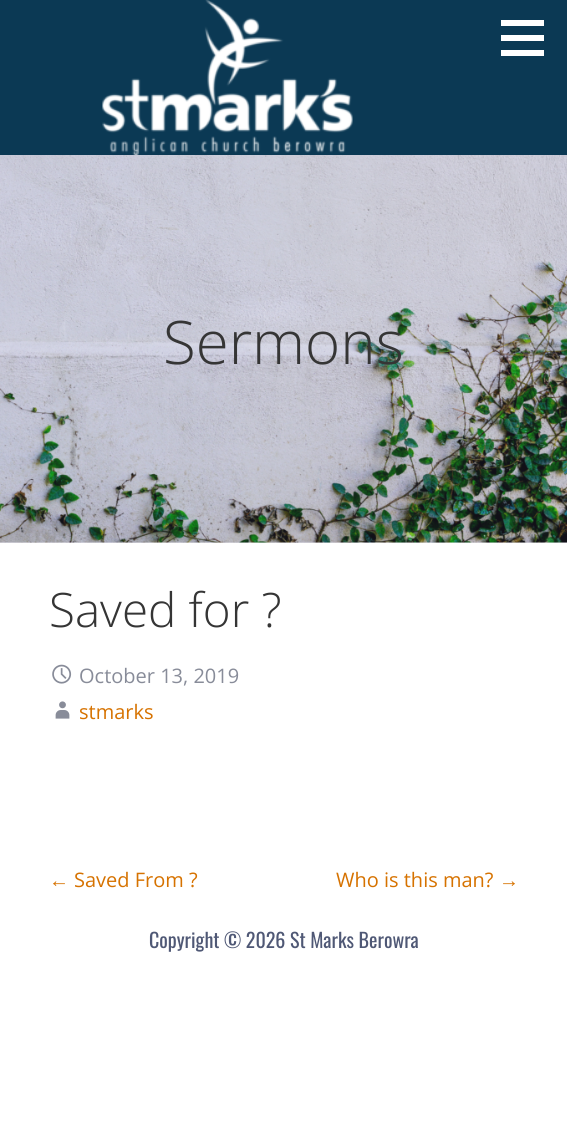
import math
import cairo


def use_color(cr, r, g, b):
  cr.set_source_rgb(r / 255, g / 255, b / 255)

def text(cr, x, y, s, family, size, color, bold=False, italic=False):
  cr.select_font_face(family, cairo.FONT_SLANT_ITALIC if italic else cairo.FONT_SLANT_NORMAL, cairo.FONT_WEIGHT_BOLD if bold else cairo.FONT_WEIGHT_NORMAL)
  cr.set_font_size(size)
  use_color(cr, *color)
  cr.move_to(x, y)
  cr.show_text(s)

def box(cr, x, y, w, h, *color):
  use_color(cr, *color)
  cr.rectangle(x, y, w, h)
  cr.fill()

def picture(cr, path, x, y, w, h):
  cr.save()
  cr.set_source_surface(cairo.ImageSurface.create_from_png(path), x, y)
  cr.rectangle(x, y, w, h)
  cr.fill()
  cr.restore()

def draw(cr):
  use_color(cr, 255, 255, 255)
  cr.paint()
  box(cr, 0, 542, 567, 1, 226, 225, 233)
  picture(cr, "img_01.png", 0, 155, 567, 388)
  box(cr, 0, 0, 567, 155, 11, 57, 84)
  picture(cr, "img_02.png", 102, 0, 251, 155)
  box(cr, 501, 20, 43, 6, 255, 255, 255)
  box(cr, 501, 35, 43, 6, 255, 255, 255)
  box(cr, 501, 50, 43, 6, 255, 255, 255)
  picture(cr, "img_03.png", 52, 664, 20, 20)
  picture(cr, "img_04.png", 55, 701, 15, 18)
  text(cr, 163, 364, "Sermons", "Open Sans Light", 60, (53, 53, 53))
  text(cr, 49, 627, "Saved for ?", "Open Sans Light", 47.5, (53, 53, 53))
  text(cr, 79, 683, "October 13, 2019", "Open Sans", 20, (136, 140, 153))
  text(cr, 79, 719, "stmarks", "Open Sans", 20, (214, 114, 0))
  text(cr, 49, 887, "←", "Liberation Sans", 20, (214, 114, 0))
  text(cr, 74, 887, "Saved From ?", "Open Sans", 20, (214, 114, 0))
  text(cr, 336, 887, "Who is this man?", "Open Sans", 20, (214, 114, 0))
  text(cr, 499, 887, "→", "Liberation Sans", 20, (214, 114, 0))
  text(cr, 149, 948, "Copyright © 2026 St Marks Berowra", "Oswald", 20, (79, 88, 117))


surface = cairo.ImageSurface(cairo.FORMAT_RGB24, 567, 1121)
cr = cairo.Context(surface)
options = cairo.FontOptions()
options.set_hint_metrics(cairo.HINT_METRICS_OFF)
options.set_hint_style(cairo.HINT_STYLE_NONE)
cr.set_font_options(options)
cr.set_miter_limit(4)
draw(cr)
surface.write_to_png("out.png")
